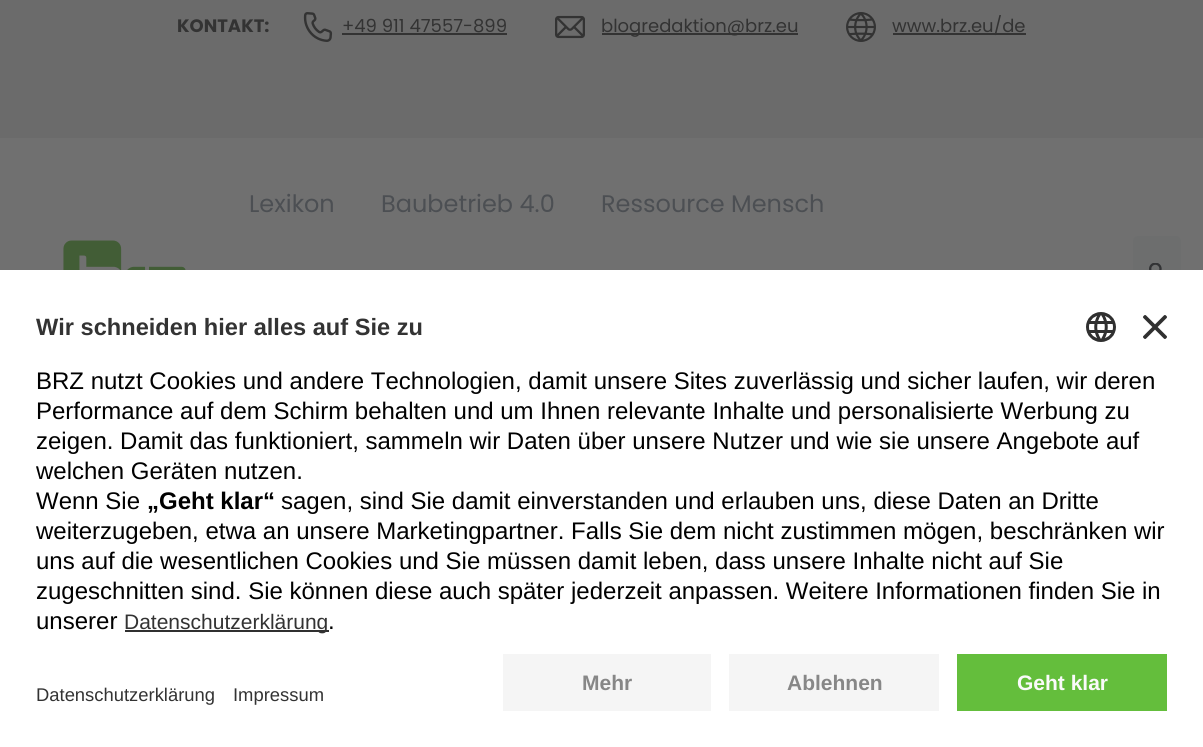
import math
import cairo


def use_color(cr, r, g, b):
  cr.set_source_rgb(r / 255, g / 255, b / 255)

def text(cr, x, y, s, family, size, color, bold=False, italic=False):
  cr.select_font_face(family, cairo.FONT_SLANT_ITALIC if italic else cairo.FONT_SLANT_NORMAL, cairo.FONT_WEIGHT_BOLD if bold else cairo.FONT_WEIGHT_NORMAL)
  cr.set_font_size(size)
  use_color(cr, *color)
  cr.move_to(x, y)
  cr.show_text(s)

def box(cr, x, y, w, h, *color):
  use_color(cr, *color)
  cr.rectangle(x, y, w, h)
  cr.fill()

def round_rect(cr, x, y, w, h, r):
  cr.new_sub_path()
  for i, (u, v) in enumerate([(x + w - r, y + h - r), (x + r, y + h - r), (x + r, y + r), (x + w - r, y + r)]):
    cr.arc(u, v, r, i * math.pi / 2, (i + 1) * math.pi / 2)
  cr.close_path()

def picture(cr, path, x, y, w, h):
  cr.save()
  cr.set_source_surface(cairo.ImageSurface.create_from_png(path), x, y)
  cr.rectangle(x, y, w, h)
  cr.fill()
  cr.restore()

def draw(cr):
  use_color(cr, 112, 112, 112)
  cr.paint()
  box(cr, 0, 0, 1203, 138, 107, 107, 107)
  picture(cr, "img_01.png", 303, 12, 30, 30)
  box(cr, 342, 33, 165, 2, 51, 51, 51)
  picture(cr, "img_02.png", 555, 15, 30, 24)
  box(cr, 602, 33, 196, 2, 51, 51, 51)
  picture(cr, "img_03.png", 846, 12, 30, 30)
  box(cr, 893, 33, 133, 2, 51, 51, 51)
  picture(cr, "img_04.png", 63, 240, 123, 30)
  use_color(cr, 109, 110, 110)
  round_rect(cr, 1133, 236, 48, 69, 5)
  cr.fill()
  picture(cr, "img_05.png", 1149, 263, 13, 7)
  box(cr, 0, 270, 1203, 477, 255, 255, 255)
  picture(cr, "img_06.png", 1086, 312, 30, 30)
  picture(cr, "img_07.png", 1143, 315, 24, 24)
  box(cr, 125, 630, 204, 2, 48, 48, 48)
  box(cr, 503, 654, 208, 57, 245, 245, 245)
  box(cr, 729, 654, 210, 57, 245, 245, 245)
  box(cr, 957, 654, 210, 57, 100, 190, 60)
  text(cr, 177, 32, "KONTAKT:", "Poppins", 18, (51, 51, 51), bold=True)
  text(cr, 342, 32, "+49 911 47557-899", "Poppins", 18, (51, 51, 51))
  text(cr, 601, 32, "blogredaktion@brz.eu", "Poppins", 18, (51, 51, 51))
  text(cr, 892, 32, "www.brz.eu/de", "Poppins", 18, (51, 51, 51))
  text(cr, 249, 212, "Lexikon", "Poppins", 24, (76, 79, 83))
  text(cr, 381, 212, "Baubetrieb 4.0", "Poppins", 24, (76, 79, 83))
  text(cr, 601, 212, "Ressource Mensch", "Poppins", 24, (76, 79, 83))
  text(cr, 36, 335, "Wir schneiden hier alles auf Sie zu", "Liberation Sans", 23.6, (51, 51, 51), bold=True)
  text(cr, 36, 389, "BRZ nutzt Cookies und andere Technologien, damit unsere Sites zuverlässig und sicher laufen, wir deren", "Liberation Sans", 24, (0, 0, 0))
  text(cr, 36, 419, "Performance auf dem Schirm behalten und um Ihnen relevante Inhalte und personalisierte Werbung zu", "Liberation Sans", 24, (0, 0, 0))
  text(cr, 36, 449, "zeigen. Damit das funktioniert, sammeln wir Daten über unsere Nutzer und wie sie unsere Angebote auf", "Liberation Sans", 24, (0, 0, 0))
  text(cr, 36, 479, "welchen Geräten nutzen.", "Liberation Sans", 24, (0, 0, 0))
  text(cr, 36, 509, "Wenn Sie", "Liberation Sans", 24, (0, 0, 0))
  text(cr, 147, 509, "„Geht klar“", "Liberation Sans", 24, (0, 0, 0), bold=True)
  text(cr, 281, 509, "sagen, sind Sie damit einverstanden und erlauben uns, diese Daten an Dritte", "Liberation Sans", 24, (0, 0, 0))
  text(cr, 36, 539, "weiterzugeben, etwa an unsere Marketingpartner. Falls Sie dem nicht zustimmen mögen, beschränken wir", "Liberation Sans", 24, (0, 0, 0))
  text(cr, 36, 569, "uns auf die wesentlichen Cookies und Sie müssen damit leben, dass unsere Inhalte nicht auf Sie", "Liberation Sans", 24, (0, 0, 0))
  text(cr, 36, 599, "zugeschnitten sind. Sie können diese auch später jederzeit anpassen. Weitere Informationen finden Sie in", "Liberation Sans", 24, (0, 0, 0))
  text(cr, 36, 629, "unserer", "Liberation Sans", 24, (0, 0, 0))
  text(cr, 124, 629, "Datenschutzerklärung", "Liberation Sans", 21, (51, 51, 51))
  text(cr, 328, 629, ".", "Liberation Sans", 24, (0, 0, 0))
  text(cr, 582, 690, "Mehr", "Liberation Sans", 21, (135, 135, 135), bold=True)
  text(cr, 787, 690, "Ablehnen", "Liberation Sans", 21, (135, 135, 135), bold=True)
  text(cr, 1017, 690, "Geht klar", "Liberation Sans", 21, (250, 250, 250), bold=True)
  text(cr, 36, 701, "Datenschutzerklärung", "Liberation Sans", 18.4, (51, 51, 51))
  text(cr, 233, 701, "Impressum", "Liberation Sans", 18.4, (51, 51, 51))


surface = cairo.ImageSurface(cairo.FORMAT_RGB24, 1203, 747)
cr = cairo.Context(surface)
options = cairo.FontOptions()
options.set_hint_metrics(cairo.HINT_METRICS_OFF)
options.set_hint_style(cairo.HINT_STYLE_NONE)
cr.set_font_options(options)
cr.set_miter_limit(4)
draw(cr)
surface.write_to_png("out.png")
